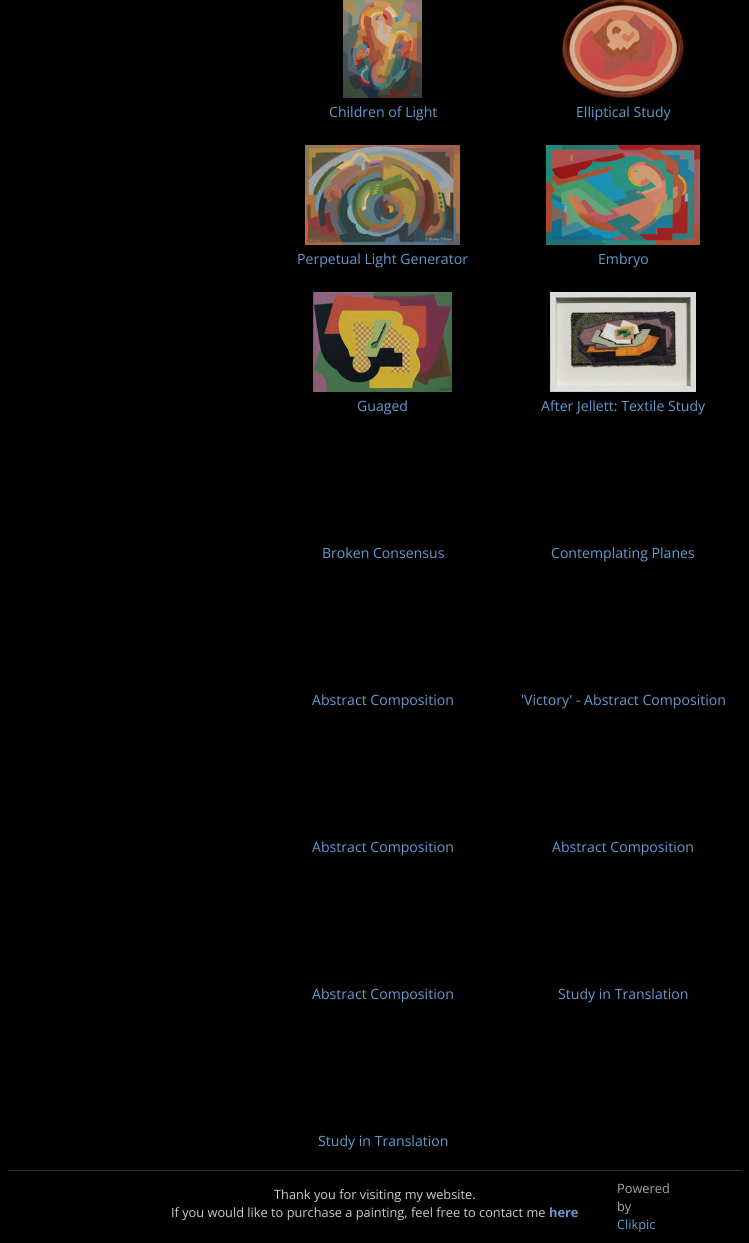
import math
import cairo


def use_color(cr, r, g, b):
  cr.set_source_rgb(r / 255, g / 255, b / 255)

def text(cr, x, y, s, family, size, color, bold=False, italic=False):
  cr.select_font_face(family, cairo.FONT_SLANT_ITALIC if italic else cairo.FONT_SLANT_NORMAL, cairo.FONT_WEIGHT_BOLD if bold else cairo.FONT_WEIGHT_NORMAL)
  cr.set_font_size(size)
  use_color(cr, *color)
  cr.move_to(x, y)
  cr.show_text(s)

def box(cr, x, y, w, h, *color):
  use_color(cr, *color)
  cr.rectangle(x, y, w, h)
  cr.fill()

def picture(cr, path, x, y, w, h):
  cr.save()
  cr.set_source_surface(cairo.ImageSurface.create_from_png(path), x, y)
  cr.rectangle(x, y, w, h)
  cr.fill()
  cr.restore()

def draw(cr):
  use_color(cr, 0, 0, 0)
  cr.paint()
  picture(cr, "img_01.png", 343, 0, 79, 98)
  picture(cr, "img_02.png", 562, 0, 122, 98)
  picture(cr, "img_03.png", 305, 145, 155, 100)
  picture(cr, "img_04.png", 546, 145, 154, 100)
  picture(cr, "img_05.png", 313, 292, 139, 100)
  picture(cr, "img_06.png", 550, 292, 146, 100)
  box(cr, 8, 1170, 733, 1, 51, 51, 51)
  text(cr, 329, 117, "Children of Light", "Open Sans", 14.1, (102, 153, 204))
  text(cr, 576, 117, "Elliptical Study", "Open Sans", 14.1, (102, 153, 204))
  text(cr, 297, 264, "Perpetual Light Generator", "Open Sans", 14.1, (102, 153, 204))
  text(cr, 598, 264, "Embryo", "Open Sans", 14.1, (102, 153, 204))
  text(cr, 357, 411, "Guaged", "Open Sans", 14.1, (102, 153, 204))
  text(cr, 541, 411, "After Jellett: Textile Study", "Open Sans", 14.1, (102, 153, 204))
  text(cr, 322, 558, "Broken Consensus", "Open Sans", 14.1, (102, 153, 204))
  text(cr, 551, 558, "Contemplating Planes", "Open Sans", 14.1, (102, 153, 204))
  text(cr, 312, 705, "Abstract Composition", "Open Sans", 14.1, (102, 153, 204))
  text(cr, 521, 705, "'Victory' - Abstract Composition", "Open Sans", 14.1, (102, 153, 204))
  text(cr, 312, 852, "Abstract Composition", "Open Sans", 14.1, (102, 153, 204))
  text(cr, 552, 852, "Abstract Composition", "Open Sans", 14.1, (102, 153, 204))
  text(cr, 312, 999, "Abstract Composition", "Open Sans", 14.1, (102, 153, 204))
  text(cr, 558, 999, "Study in Translation", "Open Sans", 14.1, (102, 153, 204))
  text(cr, 318, 1146, "Study in Translation", "Open Sans", 14.1, (102, 153, 204))
  text(cr, 274, 1199, "Thank you for visiting my website.", "Open Sans", 12.8, (204, 204, 204))
  text(cr, 171, 1217, "If you would like to purchase a painting, feel free to contact me", "Open Sans", 12.8, (204, 204, 204))
  text(cr, 549, 1217, "here", "Open Sans", 12.8, (102, 153, 204), bold=True)
  text(cr, 617, 1193, "Powered", "Open Sans", 12.8, (167, 167, 167))
  text(cr, 617, 1211, "by", "Open Sans", 12.8, (167, 167, 167))
  text(cr, 617, 1229, "Clikpic", "Open Sans", 12.8, (102, 153, 204))


surface = cairo.ImageSurface(cairo.FORMAT_RGB24, 749, 1243)
cr = cairo.Context(surface)
options = cairo.FontOptions()
options.set_hint_metrics(cairo.HINT_METRICS_OFF)
options.set_hint_style(cairo.HINT_STYLE_NONE)
cr.set_font_options(options)
cr.set_miter_limit(4)
draw(cr)
surface.write_to_png("out.png")
